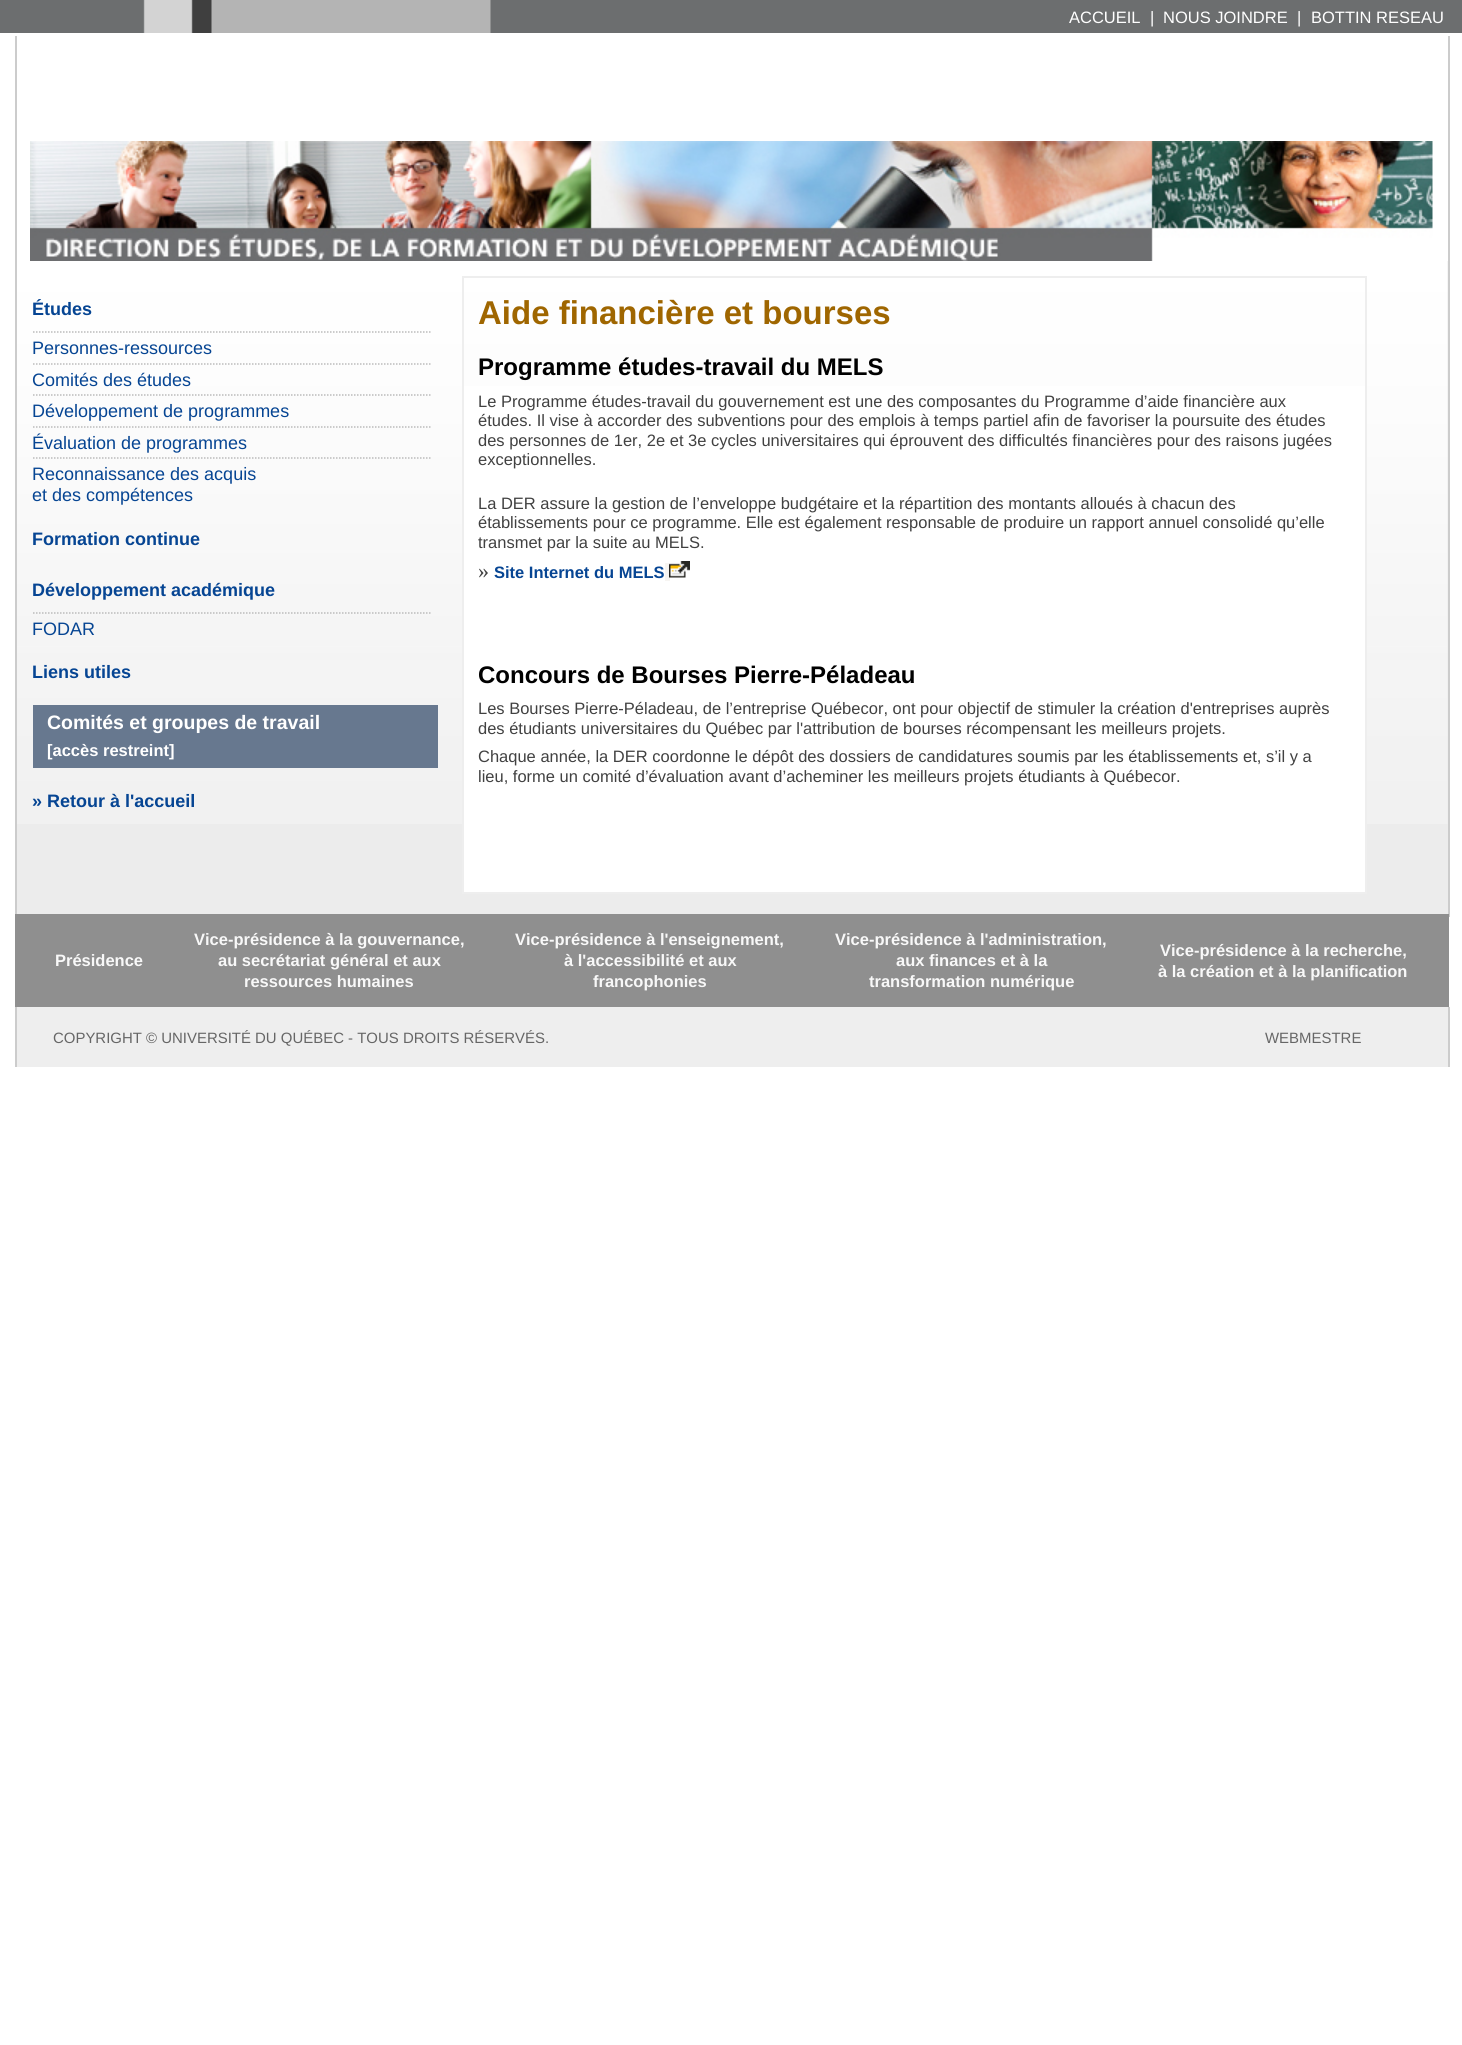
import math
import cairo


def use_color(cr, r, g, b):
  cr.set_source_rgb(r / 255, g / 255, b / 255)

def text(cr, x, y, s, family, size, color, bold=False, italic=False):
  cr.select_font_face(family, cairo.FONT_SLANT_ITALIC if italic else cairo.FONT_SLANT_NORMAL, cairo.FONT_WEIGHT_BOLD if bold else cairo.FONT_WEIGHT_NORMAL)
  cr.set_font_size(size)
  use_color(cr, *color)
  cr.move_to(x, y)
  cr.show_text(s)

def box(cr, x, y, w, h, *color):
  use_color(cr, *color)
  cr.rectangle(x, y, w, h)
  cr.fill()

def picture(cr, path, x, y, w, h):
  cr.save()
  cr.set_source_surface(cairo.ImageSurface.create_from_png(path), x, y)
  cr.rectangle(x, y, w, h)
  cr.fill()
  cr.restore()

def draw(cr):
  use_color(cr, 255, 255, 255)
  cr.paint()
  box(cr, 0, 0, 1462, 33, 108, 110, 111)
  picture(cr, "img_01.png", 143, 0, 348, 33)
  box(cr, 1448, 36, 2, 881, 204, 204, 204)
  box(cr, 15, 36, 2, 881, 204, 204, 204)
  picture(cr, "img_02.png", 30, 141, 1403, 120)
  box(cr, 17, 261, 1431, 653, 236, 236, 236)
  picture(cr, "img_03.png", 17, 261, 1431, 563)
  cr.new_path()
  cr.move_to(33, 332)
  cr.line_to(430.5, 332)
  use_color(cr, 187, 187, 187)
  cr.set_line_width(1.5)
  cr.set_dash([1.5, 1.5])
  cr.stroke()
  cr.new_path()
  cr.move_to(33, 364)
  cr.line_to(430.5, 364)
  cr.stroke()
  cr.new_path()
  cr.move_to(33, 395)
  cr.line_to(430.5, 395)
  cr.stroke()
  cr.new_path()
  cr.move_to(33, 427)
  cr.line_to(430.5, 427)
  cr.stroke()
  cr.new_path()
  cr.move_to(33, 458)
  cr.line_to(430.5, 458)
  cr.stroke()
  cr.new_path()
  cr.move_to(33, 613)
  cr.line_to(430.5, 613)
  cr.stroke()
  box(cr, 33, 705, 405, 63, 103, 120, 143)
  box(cr, 464, 386, 901, 506, 255, 255, 255)
  cr.rectangle(463, 277, 903, 616)
  use_color(cr, 238, 238, 238)
  cr.set_line_width(2)
  cr.set_dash([])
  cr.stroke()
  box(cr, 665, 563, 5, 18, 247, 245, 242)
  picture(cr, "img_04.png", 669, 561, 21, 17)
  box(cr, 15, 914, 1434, 93, 143, 143, 143)
  box(cr, 17, 1007, 1431, 60, 238, 238, 238)
  box(cr, 1448, 1007, 2, 60, 204, 204, 204)
  box(cr, 15, 1007, 2, 60, 204, 204, 204)
  text(cr, 1069, 23, "ACCUEIL", "Liberation Sans", 16.5, (255, 255, 255))
  text(cr, 1150, 23, "|", "Liberation Sans", 16.5, (255, 255, 255))
  text(cr, 1163, 23, "NOUS JOINDRE", "Liberation Sans", 16.5, (255, 255, 255))
  text(cr, 1297, 23, "|", "Liberation Sans", 16.5, (255, 255, 255))
  text(cr, 1311, 23, "BOTTIN RESEAU", "Liberation Sans", 16.5, (255, 255, 255))
  text(cr, 32, 315, "Études", "Liberation Sans", 18, (6, 69, 147), bold=True)
  text(cr, 32, 354, "Personnes-ressources", "Liberation Sans", 18, (6, 69, 147))
  text(cr, 32, 386, "Comités des études", "Liberation Sans", 18, (6, 69, 147))
  text(cr, 32, 417, "Développement de programmes", "Liberation Sans", 18, (6, 69, 147))
  text(cr, 32, 449, "Évaluation de programmes", "Liberation Sans", 18, (6, 69, 147))
  text(cr, 32, 480, "Reconnaissance des acquis", "Liberation Sans", 18, (6, 69, 147))
  text(cr, 32, 501, "et des compétences", "Liberation Sans", 18, (6, 69, 147))
  text(cr, 32, 545, "Formation continue", "Liberation Sans", 18, (6, 69, 147), bold=True)
  text(cr, 32, 596, "Développement académique", "Liberation Sans", 18, (6, 69, 147), bold=True)
  text(cr, 32, 635, "FODAR", "Liberation Sans", 18, (6, 69, 147))
  text(cr, 32, 678, "Liens utiles", "Liberation Sans", 18, (6, 69, 147), bold=True)
  text(cr, 47, 729, "Comités et groupes de travail", "Liberation Sans", 19.5, (255, 255, 255), bold=True)
  text(cr, 47, 756, "[accès restreint]", "Liberation Sans", 16.5, (255, 255, 255), bold=True)
  text(cr, 32, 807, "» Retour à l'accueil", "Liberation Sans", 18, (6, 69, 147), bold=True)
  text(cr, 478, 324, "Aide financière et bourses", "Liberation Sans", 33, (159, 102, 0), bold=True)
  text(cr, 478, 375, "Programme études-travail du MELS", "Liberation Sans", 24, (0, 0, 0), bold=True)
  text(cr, 478, 407, "Le Programme études-travail du gouvernement est une des composantes du Programme d’aide financière aux", "Liberation Sans", 16.5, (65, 65, 65))
  text(cr, 478, 426, "études. Il vise à accorder des subventions pour des emplois à temps partiel afin de favoriser la poursuite des études", "Liberation Sans", 16.5, (65, 65, 65))
  text(cr, 478, 446, "des personnes de 1er, 2e et 3e cycles universitaires qui éprouvent des difficultés financières pour des raisons jugées", "Liberation Sans", 16.5, (65, 65, 65))
  text(cr, 478, 465, "exceptionnelles.", "Liberation Sans", 16.5, (65, 65, 65))
  text(cr, 478, 509, "La DER assure la gestion de l’enveloppe budgétaire et la répartition des montants alloués à chacun des", "Liberation Sans", 16.5, (65, 65, 65))
  text(cr, 478, 528, "établissements pour ce programme. Elle est également responsable de produire un rapport annuel consolidé qu’elle", "Liberation Sans", 16.5, (65, 65, 65))
  text(cr, 478, 548, "transmet par la suite au MELS.", "Liberation Sans", 16.5, (65, 65, 65))
  text(cr, 478, 578, "»", "Liberation Serif", 22, (65, 65, 65))
  text(cr, 494, 578, "Site Internet du MELS", "Liberation Sans", 16.5, (6, 69, 147), bold=True)
  text(cr, 478, 683, "Concours de Bourses Pierre-Péladeau", "Liberation Sans", 24, (0, 0, 0), bold=True)
  text(cr, 478, 714, "Les Bourses Pierre-Péladeau, de l’entreprise Québecor, ont pour objectif de stimuler la création d'entreprises auprès", "Liberation Sans", 16.5, (65, 65, 65))
  text(cr, 478, 734, "des étudiants universitaires du Québec par l'attribution de bourses récompensant les meilleurs projets.", "Liberation Sans", 16.5, (65, 65, 65))
  text(cr, 478, 762, "Chaque année, la DER coordonne le dépôt des dossiers de candidatures soumis par les établissements et, s’il y a", "Liberation Sans", 16.5, (65, 65, 65))
  text(cr, 478, 782, "lieu, forme un comité d’évaluation avant d’acheminer les meilleurs projets étudiants à Québecor.", "Liberation Sans", 16.5, (65, 65, 65))
  text(cr, 55, 966, "Présidence", "Liberation Sans", 16.5, (248, 248, 248), bold=True)
  text(cr, 194, 945, "Vice-présidence à la gouvernance,", "Liberation Sans", 16.5, (248, 248, 248), bold=True)
  text(cr, 218, 966, "au secrétariat général et aux", "Liberation Sans", 16.5, (248, 248, 248), bold=True)
  text(cr, 244, 987, "ressources humaines", "Liberation Sans", 16.5, (248, 248, 248), bold=True)
  text(cr, 515, 945, "Vice-présidence à l'enseignement,", "Liberation Sans", 16.5, (248, 248, 248), bold=True)
  text(cr, 564, 966, "à l'accessibilité et aux", "Liberation Sans", 16.5, (248, 248, 248), bold=True)
  text(cr, 593, 987, "francophonies", "Liberation Sans", 16.5, (248, 248, 248), bold=True)
  text(cr, 835, 945, "Vice-présidence à l'administration,", "Liberation Sans", 16.5, (248, 248, 248), bold=True)
  text(cr, 896, 966, "aux finances et à la", "Liberation Sans", 16.5, (248, 248, 248), bold=True)
  text(cr, 869, 987, "transformation numérique", "Liberation Sans", 16.5, (248, 248, 248), bold=True)
  text(cr, 1160, 956, "Vice-présidence à la recherche,", "Liberation Sans", 16.5, (248, 248, 248), bold=True)
  text(cr, 1158, 977, "à la création et à la planification", "Liberation Sans", 16.5, (248, 248, 248), bold=True)
  text(cr, 53, 1043, "COPYRIGHT © UNIVERSITÉ DU QUÉBEC - TOUS DROITS RÉSERVÉS.", "Liberation Sans", 14.95, (102, 102, 102))
  text(cr, 1265, 1043, "WEBMESTRE", "Liberation Sans", 14.95, (102, 102, 102))


surface = cairo.ImageSurface(cairo.FORMAT_RGB24, 1462, 2045)
cr = cairo.Context(surface)
options = cairo.FontOptions()
options.set_hint_metrics(cairo.HINT_METRICS_OFF)
options.set_hint_style(cairo.HINT_STYLE_NONE)
cr.set_font_options(options)
cr.set_miter_limit(4)
draw(cr)
surface.write_to_png("out.png")
